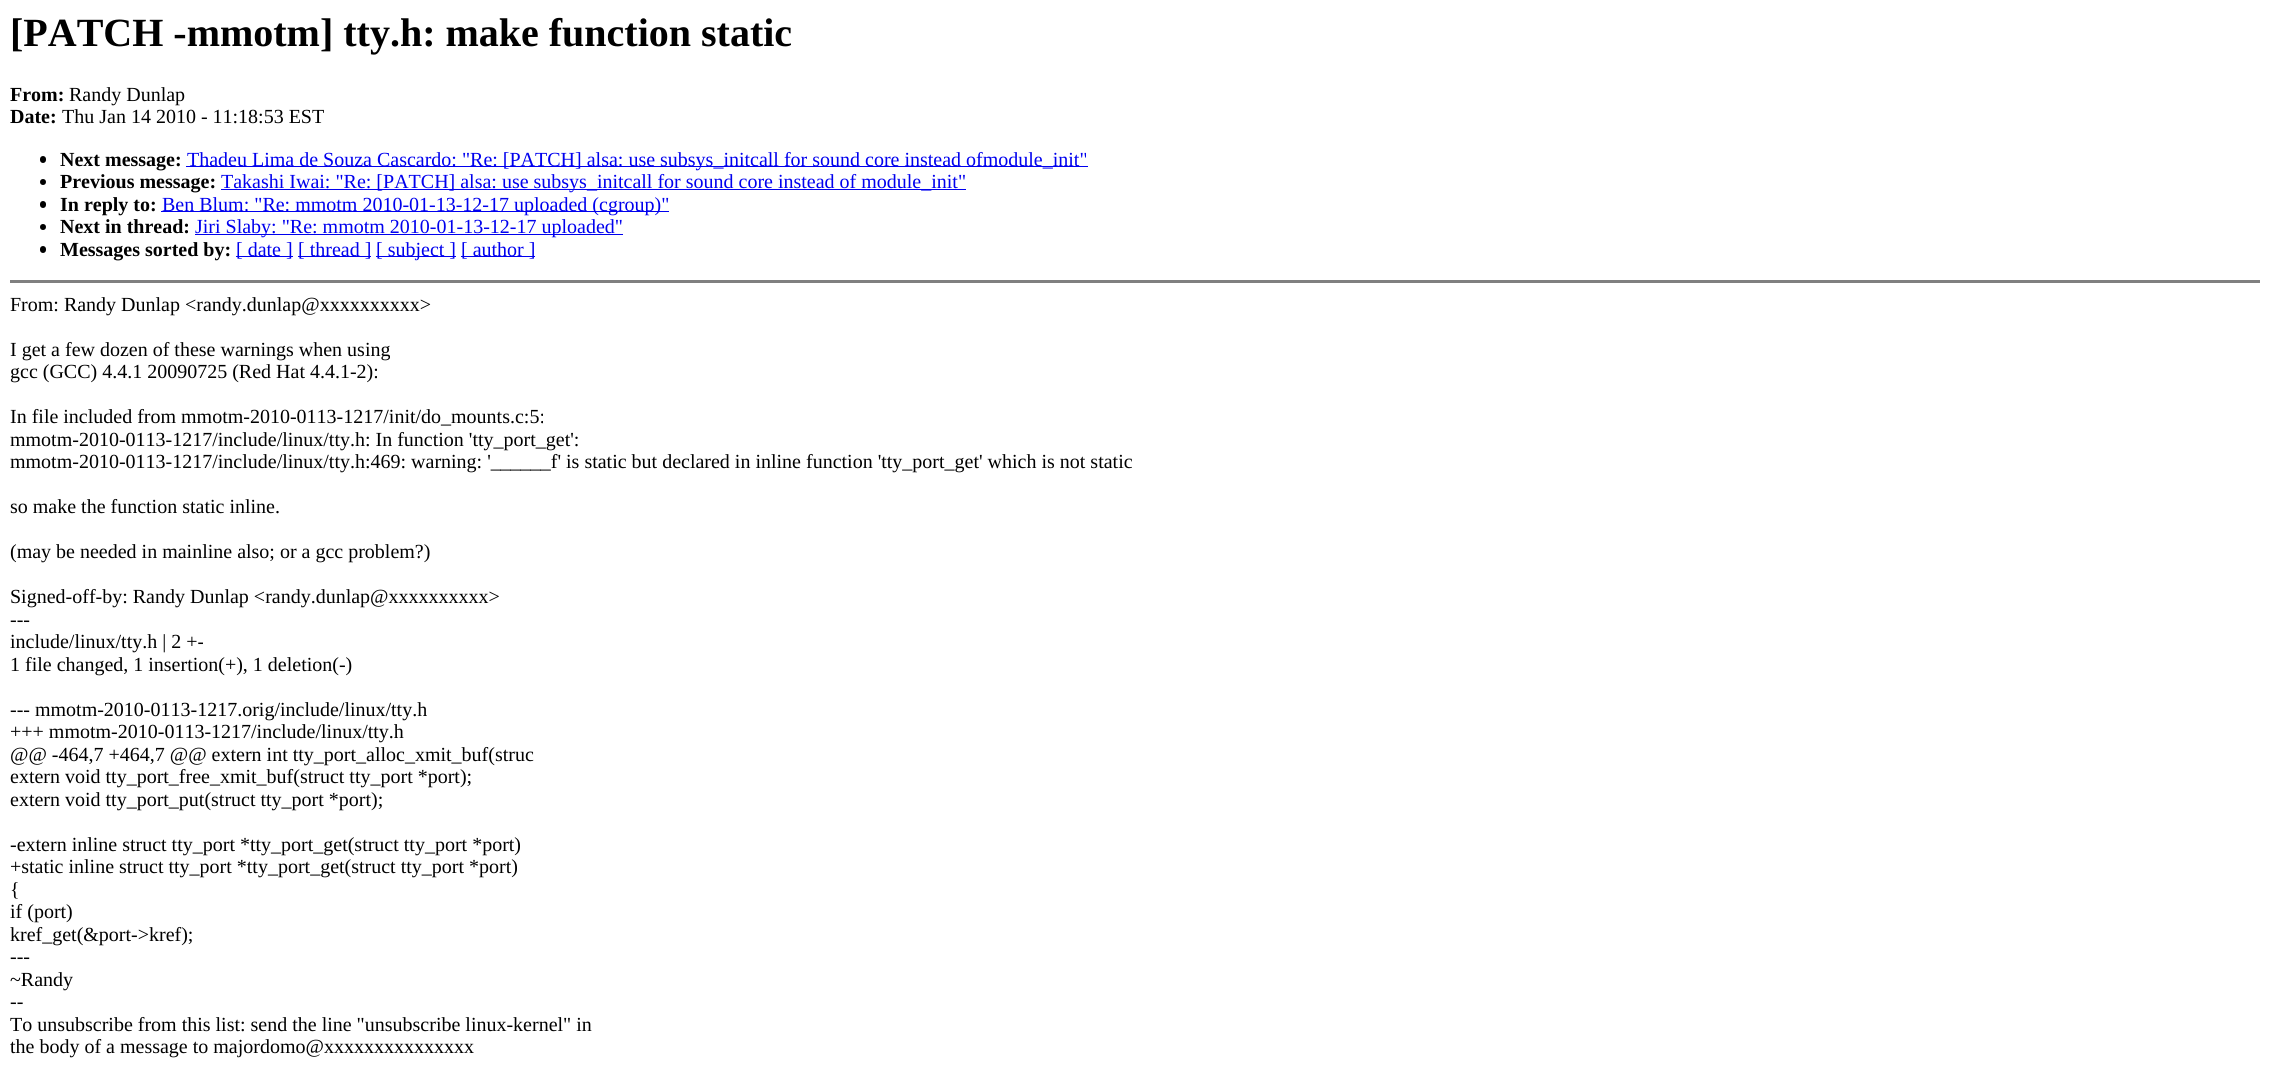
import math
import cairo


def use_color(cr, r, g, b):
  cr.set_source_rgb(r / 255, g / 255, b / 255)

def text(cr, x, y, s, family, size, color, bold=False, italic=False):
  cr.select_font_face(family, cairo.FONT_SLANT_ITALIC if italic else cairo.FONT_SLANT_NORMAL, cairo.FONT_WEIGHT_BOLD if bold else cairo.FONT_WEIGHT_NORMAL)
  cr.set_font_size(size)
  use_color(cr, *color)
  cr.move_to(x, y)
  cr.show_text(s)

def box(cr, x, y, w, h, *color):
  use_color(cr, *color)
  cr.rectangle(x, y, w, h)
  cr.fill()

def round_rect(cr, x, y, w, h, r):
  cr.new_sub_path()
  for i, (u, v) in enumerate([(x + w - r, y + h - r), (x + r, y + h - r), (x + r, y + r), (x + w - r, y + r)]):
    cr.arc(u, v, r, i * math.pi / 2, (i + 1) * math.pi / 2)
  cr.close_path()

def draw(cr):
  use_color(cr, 255, 255, 255)
  cr.paint()
  use_color(cr, 0, 0, 0)
  round_rect(cr, 40, 156, 6, 7, 3)
  cr.fill()
  box(cr, 186, 166, 902, 1, 0, 0, 238)
  use_color(cr, 0, 0, 0)
  cr.arc(43, 182, 3, 0, 2 * math.pi)
  cr.fill()
  box(cr, 221, 189, 745, 1, 0, 0, 238)
  use_color(cr, 0, 0, 0)
  round_rect(cr, 40, 201, 6, 7, 3)
  cr.fill()
  box(cr, 161, 211, 508, 1, 0, 0, 238)
  use_color(cr, 0, 0, 0)
  cr.arc(43, 227, 3, 0, 2 * math.pi)
  cr.fill()
  box(cr, 195, 234, 428, 1, 0, 0, 238)
  use_color(cr, 0, 0, 0)
  round_rect(cr, 40, 246, 6, 7, 3)
  cr.fill()
  box(cr, 236, 256, 57, 1, 0, 0, 238)
  box(cr, 298, 256, 73, 1, 0, 0, 238)
  box(cr, 376, 256, 80, 1, 0, 0, 238)
  box(cr, 461, 256, 74, 1, 0, 0, 238)
  box(cr, 10, 280, 2250, 3, 128, 128, 128)
  text(cr, 10, 46, "[PATCH -mmotm] tty.h: make function static", "Liberation Serif", 40, (0, 0, 0), bold=True)
  text(cr, 10, 101, "From:", "Liberation Serif", 20, (0, 0, 0), bold=True)
  text(cr, 69, 101, "Randy Dunlap", "Liberation Serif", 20, (0, 0, 0))
  text(cr, 10, 123, "Date:", "Liberation Serif", 20, (0, 0, 0), bold=True)
  text(cr, 62, 123, "Thu Jan 14 2010 - 11:18:53 EST", "Liberation Serif", 20, (0, 0, 0))
  text(cr, 60, 166, "Next message:", "Liberation Serif", 20, (0, 0, 0), bold=True)
  text(cr, 187, 166, "Thadeu Lima de Souza Cascardo: \"Re: [PATCH] alsa: use subsys_initcall for sound core instead ofmodule_init\"", "Liberation Serif", 20, (0, 0, 238))
  text(cr, 60, 188, "Previous message:", "Liberation Serif", 20, (0, 0, 0), bold=True)
  text(cr, 221, 188, "Takashi Iwai: \"Re: [PATCH] alsa: use subsys_initcall for sound core instead of module_init\"", "Liberation Serif", 20, (0, 0, 238))
  text(cr, 60, 211, "In reply to:", "Liberation Serif", 20, (0, 0, 0), bold=True)
  text(cr, 162, 211, "Ben Blum: \"Re: mmotm 2010-01-13-12-17 uploaded (cgroup)\"", "Liberation Serif", 20, (0, 0, 238))
  text(cr, 60, 233, "Next in thread:", "Liberation Serif", 20, (0, 0, 0), bold=True)
  text(cr, 195, 233, "Jiri Slaby: \"Re: mmotm 2010-01-13-12-17 uploaded\"", "Liberation Serif", 20, (0, 0, 238))
  text(cr, 60, 256, "Messages sorted by:", "Liberation Serif", 20, (0, 0, 0), bold=True)
  text(cr, 236, 256, "[ date ]", "Liberation Serif", 20, (0, 0, 238))
  text(cr, 298, 256, "[ thread ]", "Liberation Serif", 20, (0, 0, 238))
  text(cr, 376, 256, "[ subject ]", "Liberation Serif", 20, (0, 0, 238))
  text(cr, 461, 256, "[ author ]", "Liberation Serif", 20, (0, 0, 238))
  text(cr, 10, 311, "From: Randy Dunlap <randy.dunlap@xxxxxxxxxx>", "Liberation Serif", 20, (0, 0, 0))
  text(cr, 10, 356, "I get a few dozen of these warnings when using", "Liberation Serif", 20, (0, 0, 0))
  text(cr, 10, 378, "gcc (GCC) 4.4.1 20090725 (Red Hat 4.4.1-2):", "Liberation Serif", 20, (0, 0, 0))
  text(cr, 10, 423, "In file included from mmotm-2010-0113-1217/init/do_mounts.c:5:", "Liberation Serif", 20, (0, 0, 0))
  text(cr, 10, 446, "mmotm-2010-0113-1217/include/linux/tty.h: In function 'tty_port_get':", "Liberation Serif", 20, (0, 0, 0))
  text(cr, 10, 468, "mmotm-2010-0113-1217/include/linux/tty.h:469: warning: '______f' is static but declared in inline function 'tty_port_get' which is not static", "Liberation Serif", 20, (0, 0, 0))
  text(cr, 10, 513, "so make the function static inline.", "Liberation Serif", 20, (0, 0, 0))
  text(cr, 10, 558, "(may be needed in mainline also; or a gcc problem?)", "Liberation Serif", 20, (0, 0, 0))
  text(cr, 10, 603, "Signed-off-by: Randy Dunlap <randy.dunlap@xxxxxxxxxx>", "Liberation Serif", 20, (0, 0, 0))
  text(cr, 10, 626, "---", "Liberation Serif", 20, (0, 0, 0))
  text(cr, 10, 648, "include/linux/tty.h | 2 +-", "Liberation Serif", 20, (0, 0, 0))
  text(cr, 10, 671, "1 file changed, 1 insertion(+), 1 deletion(-)", "Liberation Serif", 20, (0, 0, 0))
  text(cr, 10, 716, "--- mmotm-2010-0113-1217.orig/include/linux/tty.h", "Liberation Serif", 20, (0, 0, 0))
  text(cr, 10, 738, "+++ mmotm-2010-0113-1217/include/linux/tty.h", "Liberation Serif", 20, (0, 0, 0))
  text(cr, 10, 761, "@@ -464,7 +464,7 @@ extern int tty_port_alloc_xmit_buf(struc", "Liberation Serif", 20, (0, 0, 0))
  text(cr, 10, 783, "extern void tty_port_free_xmit_buf(struct tty_port *port);", "Liberation Serif", 20, (0, 0, 0))
  text(cr, 10, 806, "extern void tty_port_put(struct tty_port *port);", "Liberation Serif", 20, (0, 0, 0))
  text(cr, 10, 851, "-extern inline struct tty_port *tty_port_get(struct tty_port *port)", "Liberation Serif", 20, (0, 0, 0))
  text(cr, 10, 873, "+static inline struct tty_port *tty_port_get(struct tty_port *port)", "Liberation Serif", 20, (0, 0, 0))
  text(cr, 10, 896, "{", "Liberation Serif", 20, (0, 0, 0))
  text(cr, 10, 918, "if (port)", "Liberation Serif", 20, (0, 0, 0))
  text(cr, 10, 941, "kref_get(&port->kref);", "Liberation Serif", 20, (0, 0, 0))
  text(cr, 10, 963, "---", "Liberation Serif", 20, (0, 0, 0))
  text(cr, 10, 986, "~Randy", "Liberation Serif", 20, (0, 0, 0))
  text(cr, 10, 1008, "--", "Liberation Serif", 20, (0, 0, 0))
  text(cr, 10, 1031, "To unsubscribe from this list: send the line \"unsubscribe linux-kernel\" in", "Liberation Serif", 20, (0, 0, 0))
  text(cr, 10, 1053, "the body of a message to majordomo@xxxxxxxxxxxxxxx", "Liberation Serif", 20, (0, 0, 0))


surface = cairo.ImageSurface(cairo.FORMAT_RGB24, 2270, 1069)
cr = cairo.Context(surface)
options = cairo.FontOptions()
options.set_hint_metrics(cairo.HINT_METRICS_OFF)
options.set_hint_style(cairo.HINT_STYLE_NONE)
cr.set_font_options(options)
cr.set_miter_limit(4)
draw(cr)
surface.write_to_png("out.png")
